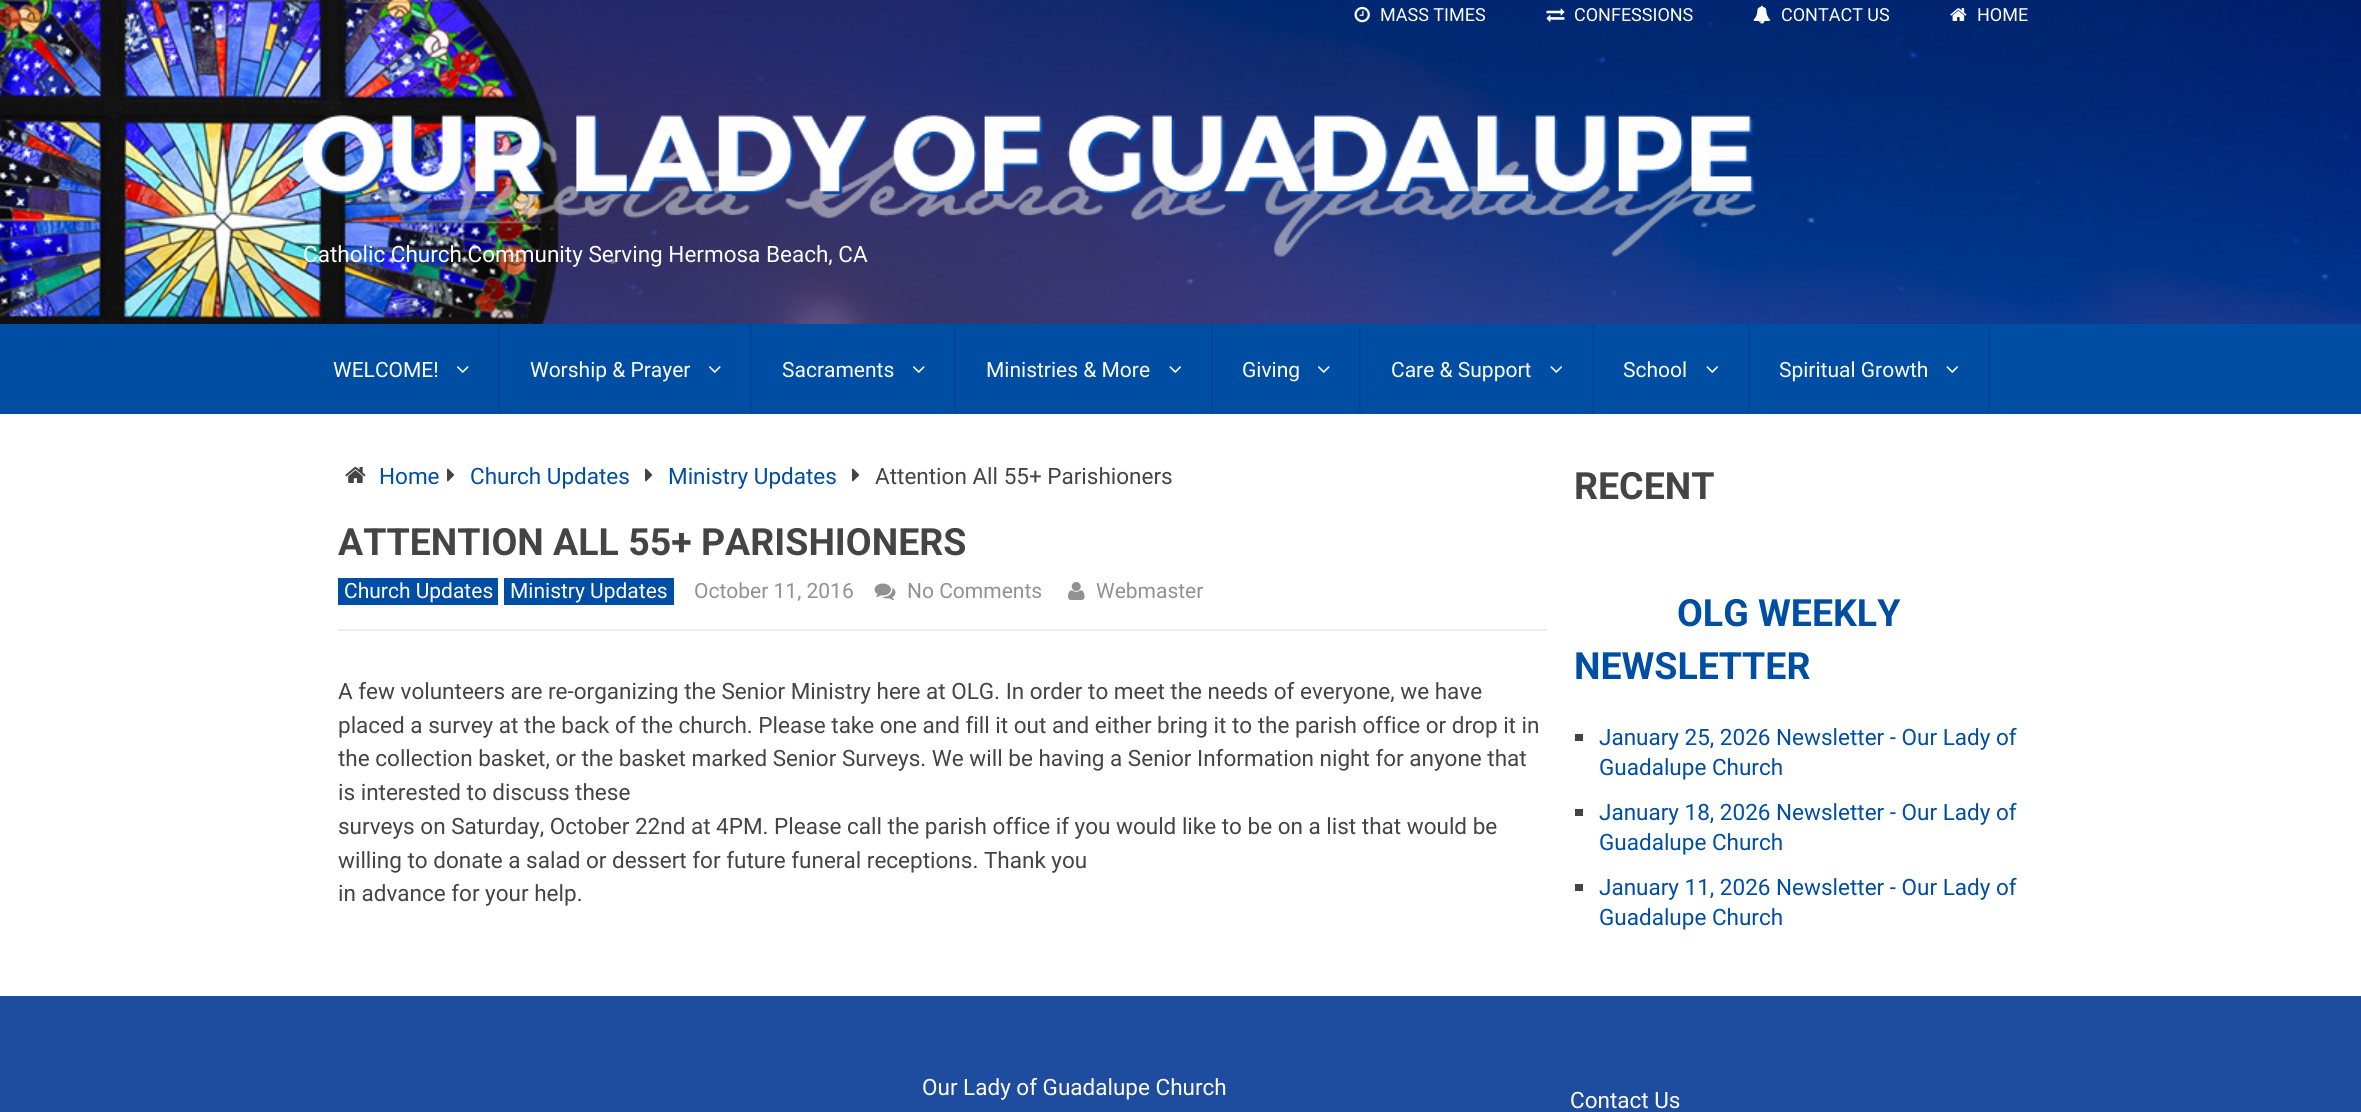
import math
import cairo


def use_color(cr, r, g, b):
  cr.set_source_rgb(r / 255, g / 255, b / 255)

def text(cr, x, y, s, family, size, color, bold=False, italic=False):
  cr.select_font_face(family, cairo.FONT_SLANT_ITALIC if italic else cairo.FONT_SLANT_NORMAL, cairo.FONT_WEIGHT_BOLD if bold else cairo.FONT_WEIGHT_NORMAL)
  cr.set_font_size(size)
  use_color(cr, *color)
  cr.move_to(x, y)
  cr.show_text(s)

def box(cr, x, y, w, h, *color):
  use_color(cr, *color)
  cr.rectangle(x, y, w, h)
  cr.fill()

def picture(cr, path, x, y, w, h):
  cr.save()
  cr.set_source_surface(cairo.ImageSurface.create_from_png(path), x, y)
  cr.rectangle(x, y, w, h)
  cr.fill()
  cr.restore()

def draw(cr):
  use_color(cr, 255, 255, 255)
  cr.paint()
  picture(cr, "img_01.png", 0, 0, 2361, 324)
  picture(cr, "img_02.png", 1354, 6, 16, 17)
  picture(cr, "img_03.png", 1546, 8, 19, 14)
  picture(cr, "img_04.png", 1753, 5, 18, 19)
  picture(cr, "img_05.png", 1950, 8, 17, 13)
  box(cr, 0, 324, 2361, 90, 0, 77, 164)
  box(cr, 498, 324, 2, 90, 0, 69, 148)
  picture(cr, "img_07.png", 457, 366, 12, 7)
  box(cr, 750, 324, 2, 90, 0, 69, 148)
  picture(cr, "img_07.png", 709, 366, 12, 7)
  box(cr, 954, 324, 2, 90, 0, 69, 148)
  picture(cr, "img_07.png", 913, 366, 12, 7)
  box(cr, 1211, 324, 2, 90, 0, 69, 148)
  picture(cr, "img_08.png", 1169, 366, 12, 7)
  box(cr, 1359, 324, 2, 90, 0, 69, 148)
  picture(cr, "img_07.png", 1318, 366, 12, 7)
  box(cr, 1592, 324, 2, 90, 0, 69, 148)
  picture(cr, "img_08.png", 1550, 366, 12, 7)
  box(cr, 1748, 324, 2, 90, 0, 69, 148)
  picture(cr, "img_08.png", 1706, 366, 12, 7)
  box(cr, 1988, 324, 2, 90, 0, 69, 148)
  picture(cr, "img_08.png", 1946, 366, 12, 7)
  picture(cr, "img_09.png", 345, 466, 21, 17)
  picture(cr, "img_10.png", 447, 468, 8, 14)
  picture(cr, "img_10.png", 645, 468, 8, 14)
  picture(cr, "img_10.png", 852, 468, 8, 14)
  box(cr, 338, 629, 1209, 2, 238, 238, 238)
  box(cr, 338, 578, 160, 27, 0, 77, 164)
  box(cr, 504, 578, 170, 27, 0, 77, 164)
  picture(cr, "img_11.png", 874, 583, 22, 17)
  picture(cr, "img_12.png", 1068, 582, 17, 18)
  box(cr, 1575, 734, 8, 7, 68, 68, 68)
  box(cr, 1575, 809, 8, 7, 68, 68, 68)
  box(cr, 1575, 884, 8, 7, 68, 68, 68)
  box(cr, 0, 996, 2361, 116, 30, 76, 158)
  text(cr, 1380, 21, "MASS TIMES", "Roboto", 18, (255, 255, 255))
  text(cr, 1574, 21, "CONFESSIONS", "Roboto", 18, (255, 255, 255))
  text(cr, 1781, 21, "CONTACT US", "Roboto", 18, (255, 255, 255))
  text(cr, 1977, 21, "HOME", "Roboto", 18, (255, 255, 255))
  text(cr, 303, 262, "Catholic Church Community Serving Hermosa Beach, CA", "Roboto", 22.5, (255, 255, 255))
  picture(cr, "img_06.png", 303, 115, 1454, 142)
  text(cr, 333, 377, "WELCOME!", "Roboto", 21, (255, 255, 255))
  text(cr, 530, 377, "Worship & Prayer", "Roboto", 21, (255, 255, 255))
  text(cr, 782, 377, "Sacraments", "Roboto", 21, (255, 255, 255))
  text(cr, 986, 377, "Ministries & More", "Roboto", 21, (255, 255, 255))
  text(cr, 1242, 377, "Giving", "Roboto", 21, (255, 255, 255))
  text(cr, 1391, 377, "Care & Support", "Roboto", 21, (255, 255, 255))
  text(cr, 1623, 377, "School", "Roboto", 21, (255, 255, 255))
  text(cr, 1779, 377, "Spiritual Growth", "Roboto", 21, (255, 255, 255))
  text(cr, 379, 484, "Home", "Roboto", 22.5, (0, 77, 164))
  text(cr, 470, 484, "Church Updates", "Roboto", 22.5, (0, 77, 164))
  text(cr, 668, 484, "Ministry Updates", "Roboto", 22.5, (0, 77, 164))
  text(cr, 875, 484, "Attention All 55+ Parishioners", "Roboto", 22.5, (68, 68, 68))
  text(cr, 338, 555, "ATTENTION ALL 55+ PARISHIONERS", "Roboto", 37.5, (68, 68, 68), bold=True)
  text(cr, 344, 598, "Church Updates", "Roboto", 21, (255, 255, 255))
  text(cr, 510, 598, "Ministry Updates", "Roboto", 21, (255, 255, 255))
  text(cr, 694, 598, "October 11, 2016", "Roboto", 21, (145, 145, 145))
  text(cr, 907, 598, "No Comments", "Roboto", 21, (145, 145, 145))
  text(cr, 1096, 598, "Webmaster", "Roboto", 21, (145, 145, 145))
  text(cr, 338, 699, "A few volunteers are re-organizing the Senior Ministry here at OLG. In order to meet the needs of everyone, we have", "Roboto", 22.5, (68, 68, 68))
  text(cr, 338, 733, "placed a survey at the back of the church. Please take one and fill it out and either bring it to the parish office or drop it in", "Roboto", 22.5, (68, 68, 68))
  text(cr, 338, 766, "the collection basket, or the basket marked Senior Surveys. We will be having a Senior Information night for anyone that", "Roboto", 22.5, (68, 68, 68))
  text(cr, 338, 800, "is interested to discuss these", "Roboto", 22.5, (68, 68, 68))
  text(cr, 338, 834, "surveys on Saturday, October 22nd at 4PM. Please call the parish office if you would like to be on a list that would be", "Roboto", 22.5, (68, 68, 68))
  text(cr, 338, 868, "willing to donate a salad or dessert for future funeral receptions. Thank you", "Roboto", 22.5, (68, 68, 68))
  text(cr, 338, 901, "in advance for your help.", "Roboto", 22.5, (68, 68, 68))
  text(cr, 1574, 499, "RECENT", "Roboto", 37.5, (68, 68, 68), bold=True)
  text(cr, 1677, 626, "OLG WEEKLY", "Roboto", 37.5, (0, 77, 164), bold=True)
  text(cr, 1574, 679, "NEWSLETTER", "Roboto", 37.5, (0, 77, 164), bold=True)
  text(cr, 1599, 745, "January 25, 2026 Newsletter - Our Lady of", "Roboto", 22.5, (0, 77, 164))
  text(cr, 1599, 775, "Guadalupe Church", "Roboto", 22.5, (0, 77, 164))
  text(cr, 1599, 820, "January 18, 2026 Newsletter - Our Lady of", "Roboto", 22.5, (0, 77, 164))
  text(cr, 1599, 850, "Guadalupe Church", "Roboto", 22.5, (0, 77, 164))
  text(cr, 1599, 895, "January 11, 2026 Newsletter - Our Lady of", "Roboto", 22.5, (0, 77, 164))
  text(cr, 1599, 925, "Guadalupe Church", "Roboto", 22.5, (0, 77, 164))
  text(cr, 922, 1095, "Our Lady of Guadalupe Church", "Roboto", 22.5, (255, 255, 255))
  text(cr, 1570, 1108, "Contact Us", "Roboto", 22.5, (255, 255, 255))


surface = cairo.ImageSurface(cairo.FORMAT_RGB24, 2361, 1112)
cr = cairo.Context(surface)
options = cairo.FontOptions()
options.set_hint_metrics(cairo.HINT_METRICS_OFF)
options.set_hint_style(cairo.HINT_STYLE_NONE)
cr.set_font_options(options)
cr.set_miter_limit(4)
draw(cr)
surface.write_to_png("out.png")
